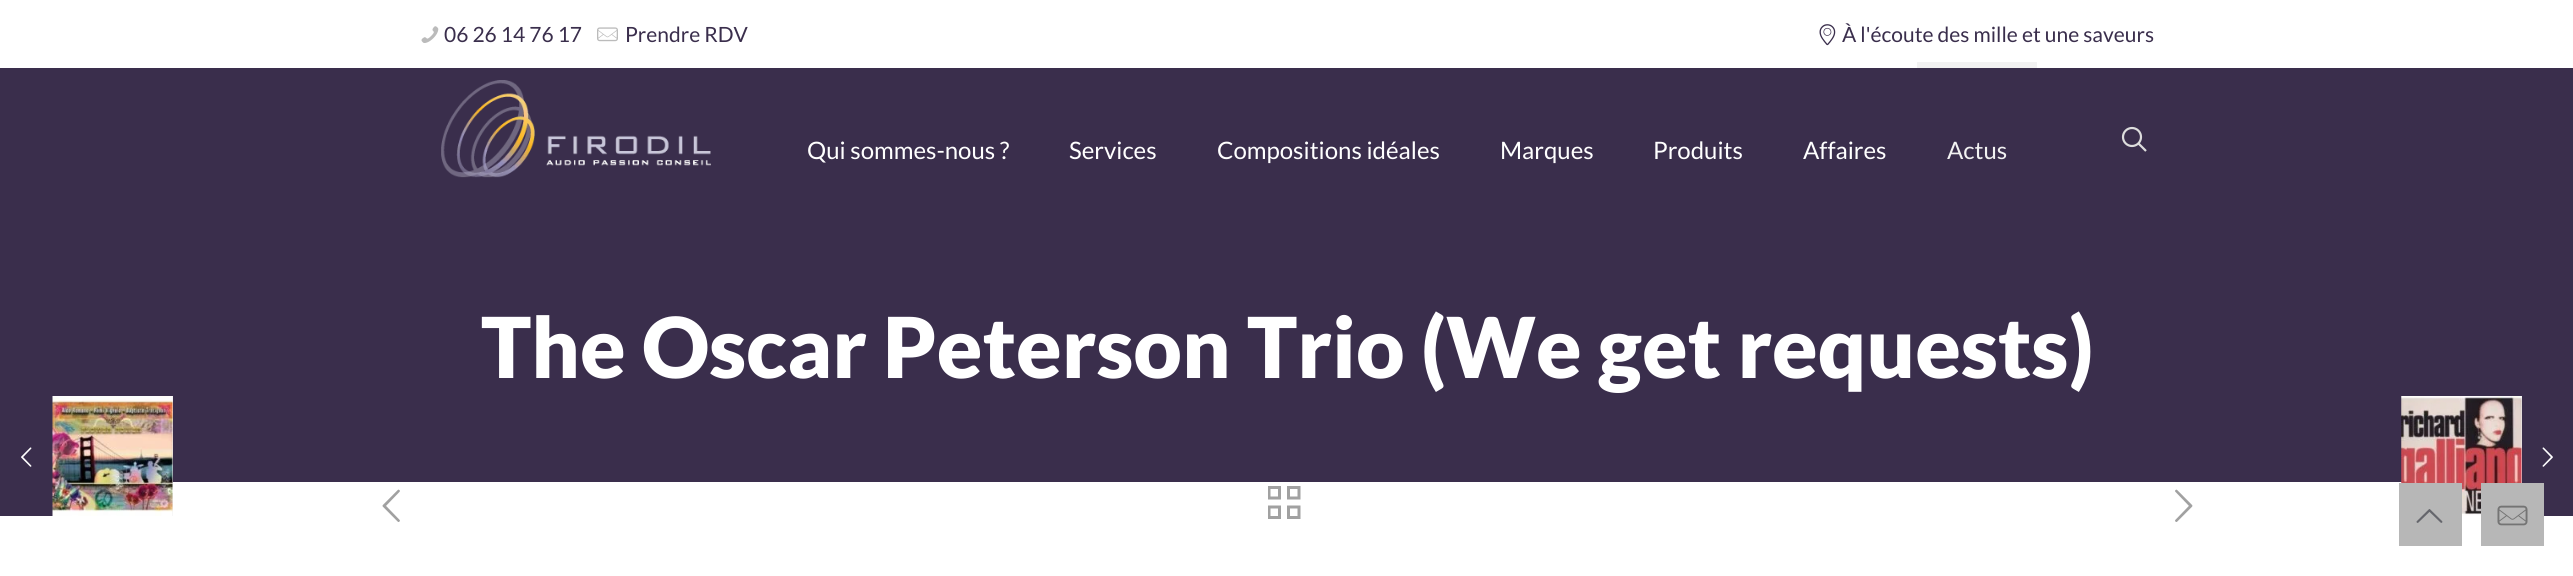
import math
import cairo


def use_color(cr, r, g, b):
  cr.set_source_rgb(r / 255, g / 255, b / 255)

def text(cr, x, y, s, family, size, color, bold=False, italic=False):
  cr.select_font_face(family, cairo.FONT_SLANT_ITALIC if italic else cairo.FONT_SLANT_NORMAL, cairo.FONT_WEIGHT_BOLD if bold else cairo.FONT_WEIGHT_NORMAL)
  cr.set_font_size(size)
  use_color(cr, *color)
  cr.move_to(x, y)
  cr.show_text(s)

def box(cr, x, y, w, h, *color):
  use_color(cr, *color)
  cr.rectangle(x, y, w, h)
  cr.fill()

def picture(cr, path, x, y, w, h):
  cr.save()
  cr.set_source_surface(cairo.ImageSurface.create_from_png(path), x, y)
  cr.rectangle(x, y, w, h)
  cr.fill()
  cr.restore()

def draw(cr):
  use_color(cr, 255, 255, 255)
  cr.paint()
  box(cr, 0, 68, 2573, 414, 58, 46, 76)
  picture(cr, "img_01.png", 421, 26, 18, 17)
  picture(cr, "img_02.png", 597, 27, 21, 15)
  picture(cr, "img_03.png", 1819, 24, 17, 22)
  picture(cr, "img_04.png", 441, 80, 270, 98)
  box(cr, 1917, 62, 120, 6, 242, 242, 242)
  cr.arc(2132, 137, 9, 0, 2 * math.pi)
  use_color(cr, 221, 221, 221)
  cr.set_line_width(2.2)
  cr.stroke()
  cr.new_path()
  cr.move_to(2138.5, 143.5)
  cr.line_to(2146, 151)
  cr.stroke()
  picture(cr, "img_05.png", 382, 489, 18, 33)
  picture(cr, "img_06.png", 1268, 486, 33, 33)
  picture(cr, "img_07.png", 2175, 489, 18, 33)
  box(cr, 0, 482, 53, 34, 58, 46, 76)
  picture(cr, "img_08.png", 21, 447, 11, 20)
  box(cr, 172, 396, 1, 120, 238, 238, 238)
  picture(cr, "img_09.png", 52, 396, 121, 120)
  picture(cr, "img_10.png", 2401, 396, 1, 87)
  box(cr, 2521, 396, 1, 87, 238, 238, 238)
  picture(cr, "img_11.png", 2401, 396, 121, 120)
  box(cr, 2522, 482, 51, 34, 58, 46, 76)
  picture(cr, "img_12.png", 2542, 447, 11, 20)
  box(cr, 2399, 483, 63, 63, 183, 183, 183)
  picture(cr, "img_13.png", 2416, 509, 27, 14)
  box(cr, 2481, 483, 63, 63, 183, 183, 183)
  picture(cr, "img_14.png", 2497, 505, 31, 21)
  text(cr, 444, 42, "06 26 14 76 17", "Lato", 21, (58, 46, 76))
  text(cr, 625, 42, "Prendre RDV", "Lato", 21, (58, 46, 76))
  text(cr, 1842, 42, "À l'écoute des mille et une saveurs", "Lato", 21, (58, 46, 76))
  text(cr, 807, 159, "Qui sommes-nous ?", "Lato", 24, (255, 255, 255))
  text(cr, 1069, 159, "Services", "Lato", 24, (255, 255, 255))
  text(cr, 1217, 159, "Compositions idéales", "Lato", 24, (255, 255, 255))
  text(cr, 1500, 159, "Marques", "Lato", 24, (255, 255, 255))
  text(cr, 1653, 159, "Produits", "Lato", 24, (255, 255, 255))
  text(cr, 1803, 159, "Affaires", "Lato", 24, (255, 255, 255))
  text(cr, 1947, 159, "Actus", "Lato", 24, (242, 242, 242))
  text(cr, 481, 378, "The Oscar Peterson Trio (We get requests)", "Lato Black", 84, (255, 255, 255))


surface = cairo.ImageSurface(cairo.FORMAT_RGB24, 2573, 576)
cr = cairo.Context(surface)
options = cairo.FontOptions()
options.set_hint_metrics(cairo.HINT_METRICS_OFF)
options.set_hint_style(cairo.HINT_STYLE_NONE)
cr.set_font_options(options)
cr.set_miter_limit(4)
draw(cr)
surface.write_to_png("out.png")
